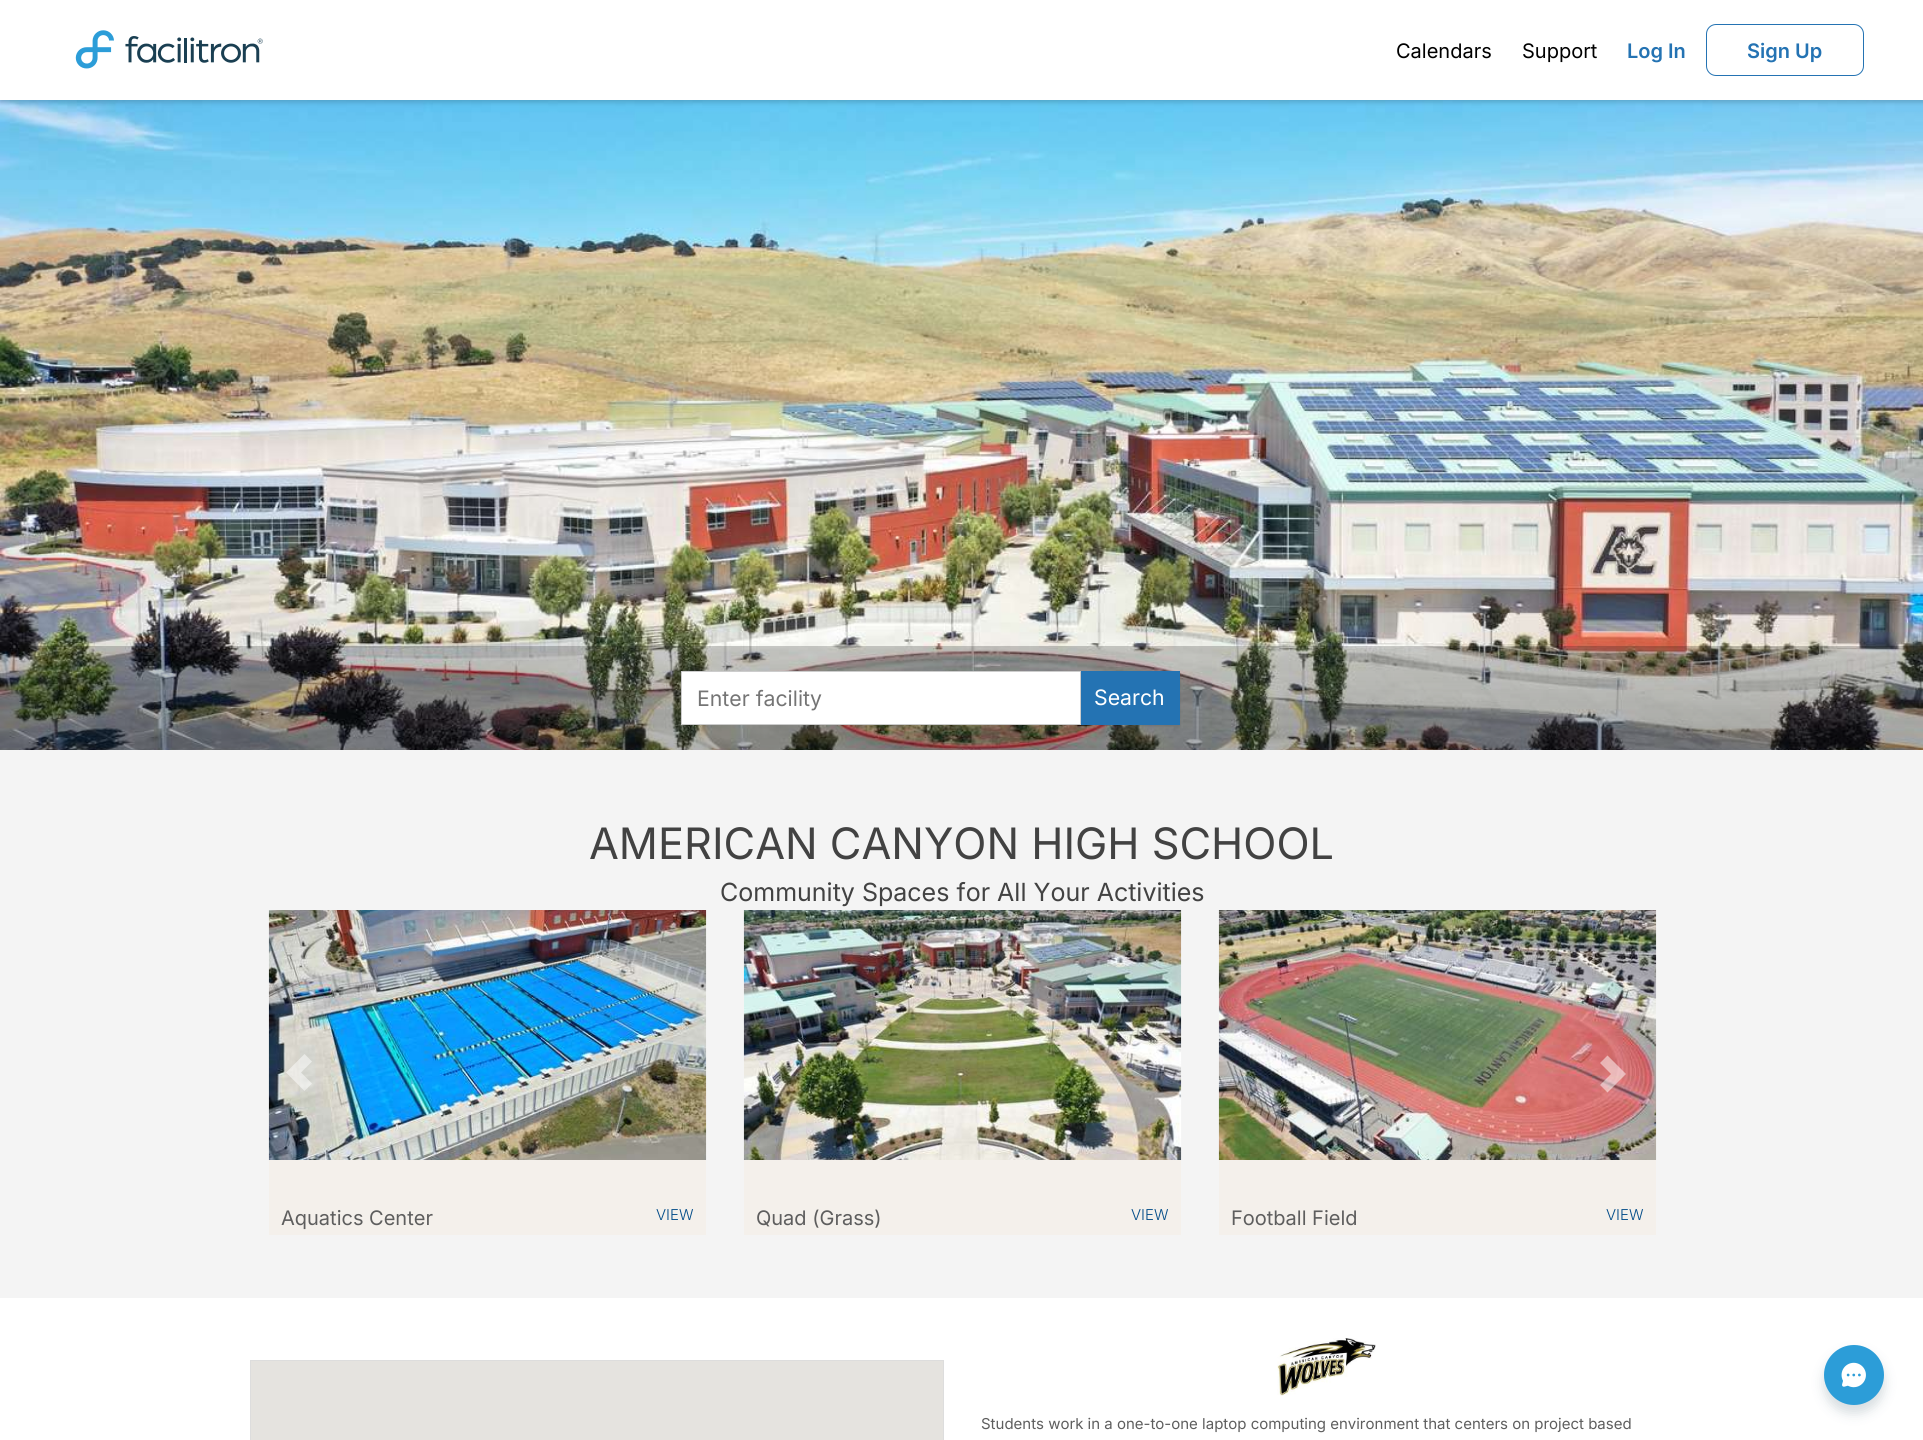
import math
import cairo


def use_color(cr, r, g, b):
  cr.set_source_rgb(r / 255, g / 255, b / 255)

def text(cr, x, y, s, family, size, color, bold=False, italic=False):
  cr.select_font_face(family, cairo.FONT_SLANT_ITALIC if italic else cairo.FONT_SLANT_NORMAL, cairo.FONT_WEIGHT_BOLD if bold else cairo.FONT_WEIGHT_NORMAL)
  cr.set_font_size(size)
  use_color(cr, *color)
  cr.move_to(x, y)
  cr.show_text(s)

def box(cr, x, y, w, h, *color):
  use_color(cr, *color)
  cr.rectangle(x, y, w, h)
  cr.fill()

def round_rect(cr, x, y, w, h, r):
  cr.new_sub_path()
  for i, (u, v) in enumerate([(x + w - r, y + h - r), (x + r, y + h - r), (x + r, y + r), (x + w - r, y + r)]):
    cr.arc(u, v, r, i * math.pi / 2, (i + 1) * math.pi / 2)
  cr.close_path()

def shadow(cr, x, y, w, h, r, blur, alpha):
  cr.push_group_with_content(cairo.CONTENT_ALPHA)
  cr.set_operator(cairo.OPERATOR_SOURCE)
  for i in range(15, -16, -2):
    e = blur * i / 6
    if min(w, h) + 2 * e > 0:
      cr.set_source_rgba(0, 0, 0, alpha * math.erfc((i - 1) / 8.5) / 2)
      round_rect(cr, x - e, y - e, w + 2 * e, h + 2 * e, max(0, min(r + e + blur * .6, min(w, h) / 2 + e)))
      cr.fill()
  cr.mask(cr.pop_group())

def picture(cr, path, x, y, w, h):
  cr.save()
  cr.set_source_surface(cairo.ImageSurface.create_from_png(path), x, y)
  cr.rectangle(x, y, w, h)
  cr.fill()
  cr.restore()

def draw(cr):
  use_color(cr, 244, 244, 244)
  cr.paint()
  picture(cr, "img_02.png", 0, 100, 1923, 650)
  use_color(cr, 0, 0, 0)
  shadow(cr, 0, 3, 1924, 100, 0, 2.5, 0.12)
  shadow(cr, 0, 0, 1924, 100, 0, 2.5, 0.08)
  box(cr, 0, 0, 1923, 100, 255, 255, 255)
  picture(cr, "img_01.png", 75, 30, 188, 39)
  round_rect(cr, 1706.5, 24.5, 157, 51, 9.5)
  use_color(cr, 36, 115, 179)
  cr.set_line_width(1)
  cr.stroke()
  use_color(cr, 0, 0, 0)
  shadow(cr, 1080, 673, 100, 53, 0, 1, 0.12)
  use_color(cr, 255, 255, 255)
  cr.rectangle(681.5, 671.5, 399, 53)
  cr.fill_preserve()
  use_color(cr, 204, 204, 204)
  cr.stroke()
  box(cr, 1081, 671, 99, 54, 36, 115, 179)
  picture(cr, "img_03.png", 268, 910, 439, 250)
  cr.set_source_rgba(1, 1, 1, 0.5)
  cr.new_path()
  cr.move_to(286, 1072.5)
  cr.line_to(304.5, 1091)
  cr.line_to(312, 1083.5)
  cr.line_to(301, 1072.5)
  cr.line_to(312, 1061.5)
  cr.line_to(304.5, 1054)
  cr.close_path()
  cr.fill()
  picture(cr, "img_05.png", 1218, 910, 439, 250)
  cr.new_path()
  cr.move_to(1600, 1085)
  cr.line_to(1611, 1074)
  cr.line_to(1600, 1063)
  cr.line_to(1607.5, 1055.5)
  cr.line_to(1626, 1074)
  cr.line_to(1607.5, 1092.5)
  cr.close_path()
  cr.fill()
  box(cr, 269, 1160, 437, 75, 244, 240, 235)
  box(cr, 744, 1160, 437, 75, 244, 240, 235)
  picture(cr, "img_04.png", 743, 910, 439, 250)
  box(cr, 1219, 1160, 437, 75, 244, 240, 235)
  box(cr, 0, 1298, 1923, 142, 255, 255, 255)
  cr.rectangle(250.5, 1360.5, 693, 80)
  use_color(cr, 221, 221, 221)
  cr.stroke()
  box(cr, 251, 1361, 692, 79, 229, 227, 223)
  picture(cr, "img_06.png", 1277, 1338, 99, 58)
  use_color(cr, 26, 63, 82)
  shadow(cr, 1824, 1353, 60, 60, 30, 6, 0.18)
  use_color(cr, 44, 157, 216)
  cr.arc(1854, 1375, 30, 0, 2 * math.pi)
  cr.fill()
  picture(cr, "img_07.png", 1841, 1362, 25, 26)
  text(cr, 1396, 58, "Calendars", "Inter", 20, (0, 0, 0))
  text(cr, 1522, 58, "Support", "Inter", 20, (0, 0, 0))
  text(cr, 1627, 58, "Log In", "Inter SemiBold", 20, (36, 115, 179))
  text(cr, 1747, 58, "Sign Up", "Inter SemiBold", 20, (36, 115, 179))
  text(cr, 697, 706, "Enter facility", "Inter", 21.25, (117, 117, 117))
  text(cr, 1094, 705, "Search", "Inter", 21.25, (255, 255, 255))
  text(cr, 589, 859, "AMERICAN CANYON HIGH SCHOOL", "Inter", 43.3, (66, 66, 66))
  text(cr, 720, 901, "Community Spaces for All Your Activities", "Inter", 25, (66, 66, 66))
  text(cr, 281, 1225, "Aquatics Center", "Inter", 20, (94, 94, 94))
  text(cr, 656, 1220, "VIEW", "Inter Light", 15, (4, 77, 137))
  text(cr, 756, 1225, "Quad (Grass)", "Inter", 20, (94, 94, 94))
  text(cr, 1131, 1220, "VIEW", "Inter Light", 15, (4, 77, 137))
  text(cr, 1231, 1225, "Football Field", "Inter", 20, (94, 94, 94))
  text(cr, 1606, 1220, "VIEW", "Inter Light", 15, (4, 77, 137))
  text(cr, 981, 1429, "Students work in a one-to-one laptop computing environment that centers on project based", "Inter", 15, (94, 94, 94))


surface = cairo.ImageSurface(cairo.FORMAT_RGB24, 1923, 1440)
cr = cairo.Context(surface)
options = cairo.FontOptions()
options.set_hint_metrics(cairo.HINT_METRICS_OFF)
options.set_hint_style(cairo.HINT_STYLE_NONE)
cr.set_font_options(options)
cr.set_miter_limit(4)
draw(cr)
surface.write_to_png("out.png")
